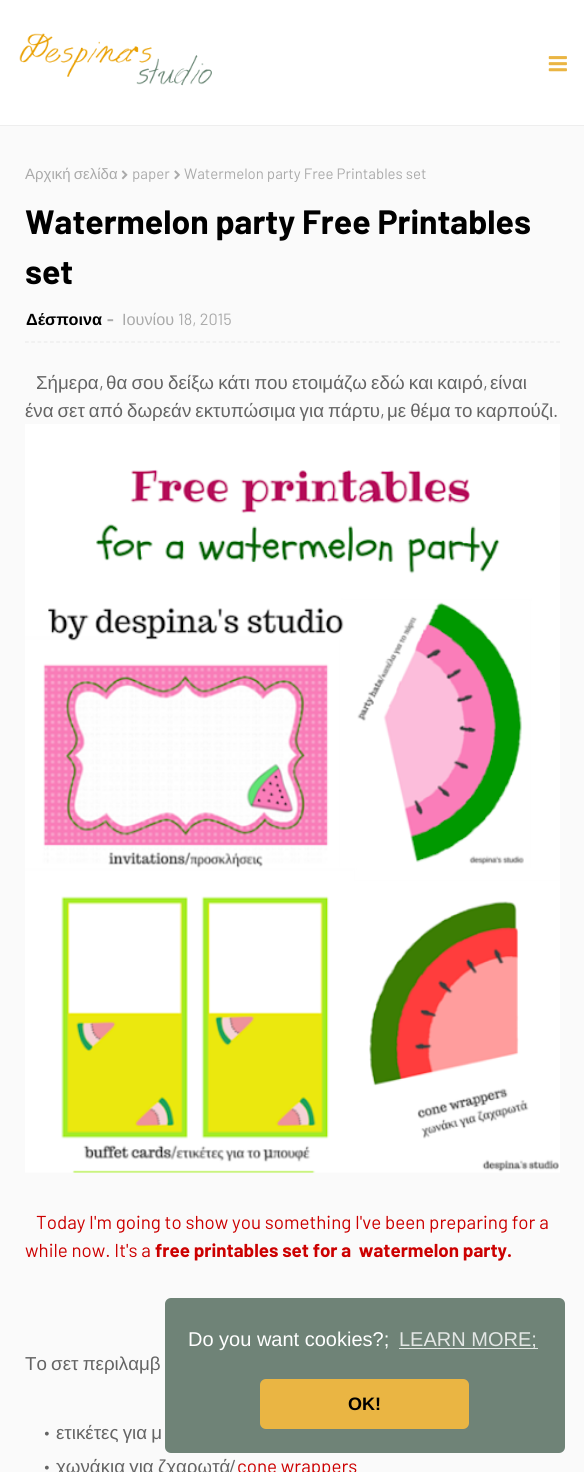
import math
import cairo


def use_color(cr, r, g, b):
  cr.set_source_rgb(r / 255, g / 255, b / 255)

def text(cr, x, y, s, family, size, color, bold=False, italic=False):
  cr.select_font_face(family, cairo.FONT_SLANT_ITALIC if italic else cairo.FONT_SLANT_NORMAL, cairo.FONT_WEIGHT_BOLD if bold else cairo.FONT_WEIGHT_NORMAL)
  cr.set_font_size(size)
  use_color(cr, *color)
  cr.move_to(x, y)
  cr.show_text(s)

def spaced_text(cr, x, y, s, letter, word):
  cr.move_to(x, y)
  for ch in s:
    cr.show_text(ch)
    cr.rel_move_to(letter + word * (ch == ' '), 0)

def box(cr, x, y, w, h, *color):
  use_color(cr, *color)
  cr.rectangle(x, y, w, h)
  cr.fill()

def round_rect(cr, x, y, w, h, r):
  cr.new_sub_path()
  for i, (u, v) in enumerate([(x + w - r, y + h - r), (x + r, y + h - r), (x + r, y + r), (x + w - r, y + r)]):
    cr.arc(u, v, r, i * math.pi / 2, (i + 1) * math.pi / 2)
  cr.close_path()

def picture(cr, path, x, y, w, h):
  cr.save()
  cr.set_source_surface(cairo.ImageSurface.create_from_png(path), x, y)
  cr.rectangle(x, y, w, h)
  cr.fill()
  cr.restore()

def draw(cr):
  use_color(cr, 250, 250, 250)
  cr.paint()
  box(cr, 0, 0, 584, 125, 255, 255, 255)
  box(cr, 0, 125, 584, 1, 238, 238, 238)
  picture(cr, "img_01.png", 19, 33, 193, 53)
  picture(cr, "img_02.png", 548, 56, 19, 16)
  picture(cr, "img_03.png", 121, 170, 7, 10)
  picture(cr, "img_04.png", 174, 170, 6, 10)
  cr.new_path()
  cr.move_to(25, 342)
  cr.line_to(560, 342)
  use_color(cr, 235, 235, 235)
  cr.set_line_width(1.2)
  cr.set_dash([3.75, 2.5])
  cr.stroke()
  picture(cr, "img_05.png", 25, 424, 535, 749)
  use_color(cr, 111, 131, 119)
  round_rect(cr, 165, 1298, 400, 155, 6)
  cr.fill()
  box(cr, 399, 1348, 139, 1, 226, 230, 228)
  use_color(cr, 234, 181, 67)
  round_rect(cr, 260, 1379, 209, 50, 6)
  cr.fill()
  cr.select_font_face("Liberation Sans")
  cr.set_font_size(15)
  use_color(cr, 170, 170, 170)
  spaced_text(cr, 25, 179, "Αρχική σελίδα", 0, -1)
  text(cr, 132, 179, "paper", "Barlow", 15, (170, 170, 170))
  text(cr, 184, 179, "Watermelon party Free Printables set", "Barlow", 15, (170, 170, 170))
  text(cr, 25, 234, "Watermelon party Free Printables", "Barlow", 33.75, (0, 0, 0), bold=True)
  text(cr, 25, 284, "set", "Barlow", 33.75, (0, 0, 0), bold=True)
  text(cr, 26, 325, "Δέσποινα", "Liberation Sans", 16.25, (0, 0, 0), bold=True)
  text(cr, 107, 325, "-", "Barlow", 16.25, (170, 170, 170), bold=True)
  text(cr, 122, 325, "Ιουνίου", "Liberation Sans", 16.25, (170, 170, 170))
  text(cr, 178, 325, "18, 2015", "Barlow", 16.25, (170, 170, 170))
  text(cr, 36, 389, "Σήμερα", "Liberation Sans", 18.75, (100, 100, 100))
  text(cr, 99, 389, ",", "Barlow", 18.75, (100, 100, 100))
  cr.select_font_face("Liberation Sans")
  spaced_text(cr, 106, 389, "θα σου δείξω κάτι που ετοιμάζω εδώ και καιρό", 0, -1)
  text(cr, 483, 389, ",", "Barlow", 18.75, (100, 100, 100))
  text(cr, 490, 389, "είναι", "Liberation Sans", 18.75, (100, 100, 100))
  spaced_text(cr, 25, 417, "ένα σετ από δωρεάν εκτυπώσιμα για πάρτυ", 0, -1.25)
  text(cr, 380, 417, ",", "Barlow", 18.75, (100, 100, 100))
  cr.select_font_face("Liberation Sans")
  spaced_text(cr, 387, 417, "με θέμα το καρπούζι", 0, -1.25)
  text(cr, 553, 417, ".", "Barlow", 18.75, (100, 100, 100))
  text(cr, 36, 1229, "Today I'm going to show you something I've been preparing for a", "Barlow", 18.75, (204, 0, 0))
  text(cr, 25, 1257, "while now. It's a", "Barlow", 18.75, (204, 0, 0))
  text(cr, 155, 1257, "free printables set for a  watermelon party.", "Barlow", 18.75, (204, 0, 0), bold=True)
  cr.select_font_face("Liberation Sans")
  use_color(cr, 100, 100, 100)
  spaced_text(cr, 25, 1370, "Το σετ περιλαμβ", 0, -1)
  text(cr, 44, 1439, "•", "Liberation Serif", 16.25, (100, 100, 100))
  cr.select_font_face("Liberation Sans")
  cr.set_font_size(18.75)
  spaced_text(cr, 56, 1439, "ετικέτες για μ", 0, -1)
  text(cr, 44, 1473, "•", "Liberation Serif", 16.25, (100, 100, 100))
  cr.select_font_face("Liberation Sans")
  cr.set_font_size(18.75)
  spaced_text(cr, 56, 1473, "χωνάκια για ζχαρωτά", 0, -1)
  text(cr, 229, 1473, "/", "Barlow", 18.75, (100, 100, 100))
  text(cr, 237, 1473, "cone wrappers", "Barlow", 18.75, (204, 0, 0))
  text(cr, 188, 1346, "Do you want cookies?;", "Liberation Sans", 20, (255, 255, 255))
  text(cr, 399, 1346, "LEARN MORE;", "Liberation Sans", 20, (226, 230, 228))
  text(cr, 348, 1410, "OK!", "Liberation Sans", 18, (0, 0, 0), bold=True)


surface = cairo.ImageSurface(cairo.FORMAT_RGB24, 584, 1472)
cr = cairo.Context(surface)
options = cairo.FontOptions()
options.set_hint_metrics(cairo.HINT_METRICS_OFF)
options.set_hint_style(cairo.HINT_STYLE_NONE)
cr.set_font_options(options)
cr.set_miter_limit(4)
draw(cr)
surface.write_to_png("out.png")
